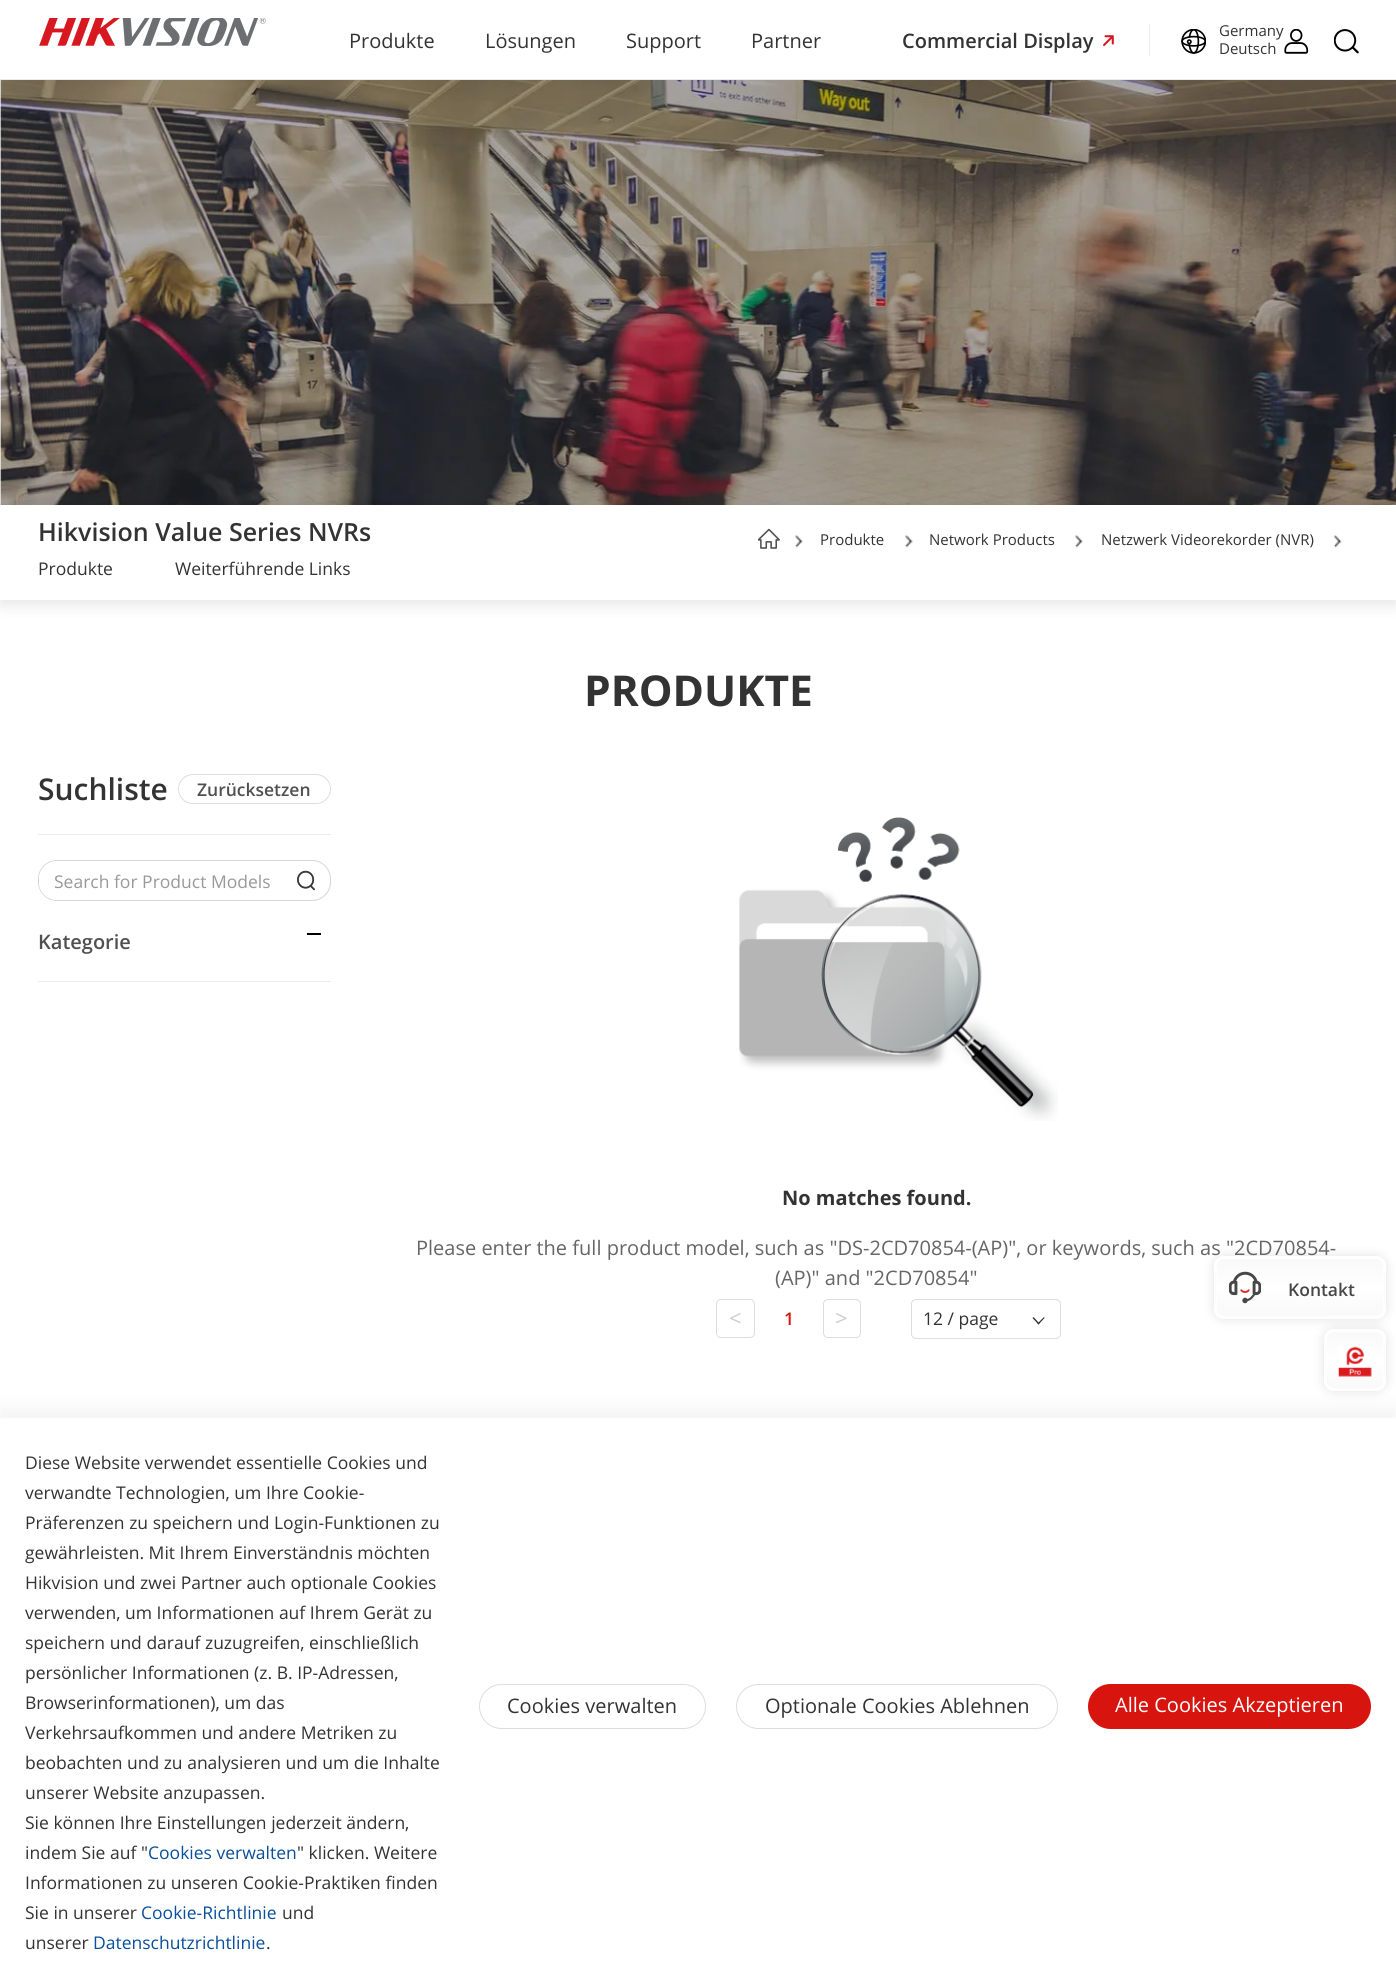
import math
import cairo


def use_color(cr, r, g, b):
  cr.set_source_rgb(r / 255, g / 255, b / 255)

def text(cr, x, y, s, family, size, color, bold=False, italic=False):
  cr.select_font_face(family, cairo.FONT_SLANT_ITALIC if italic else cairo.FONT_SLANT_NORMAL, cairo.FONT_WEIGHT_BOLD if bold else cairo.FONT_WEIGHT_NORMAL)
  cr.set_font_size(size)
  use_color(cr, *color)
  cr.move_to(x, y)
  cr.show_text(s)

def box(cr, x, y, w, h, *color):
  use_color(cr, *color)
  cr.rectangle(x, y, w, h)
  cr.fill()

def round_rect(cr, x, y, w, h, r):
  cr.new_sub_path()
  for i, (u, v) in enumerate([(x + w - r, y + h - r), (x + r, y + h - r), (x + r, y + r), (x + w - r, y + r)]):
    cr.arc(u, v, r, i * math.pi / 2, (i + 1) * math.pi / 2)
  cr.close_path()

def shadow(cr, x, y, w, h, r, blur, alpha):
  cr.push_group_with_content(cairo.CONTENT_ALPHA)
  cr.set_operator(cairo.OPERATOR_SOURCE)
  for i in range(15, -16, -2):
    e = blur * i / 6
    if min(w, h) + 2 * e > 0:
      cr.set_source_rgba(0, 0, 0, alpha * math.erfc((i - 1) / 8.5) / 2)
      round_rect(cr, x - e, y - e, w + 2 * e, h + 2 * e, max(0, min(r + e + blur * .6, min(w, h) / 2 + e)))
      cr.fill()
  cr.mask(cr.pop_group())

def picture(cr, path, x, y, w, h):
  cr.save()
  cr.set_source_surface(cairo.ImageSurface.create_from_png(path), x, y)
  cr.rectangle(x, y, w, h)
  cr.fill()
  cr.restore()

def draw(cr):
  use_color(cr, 255, 255, 255)
  cr.paint()
  box(cr, 0, 79, 1396, 1, 234, 234, 234)
  picture(cr, "img_01.png", 39, 18, 227, 28)
  picture(cr, "img_02.png", 1103, 35, 11, 11)
  box(cr, 1149, 24, 1, 32, 234, 234, 234)
  picture(cr, "img_03.png", 1181, 29, 25, 25)
  picture(cr, "img_04.png", 1284, 29, 25, 25)
  picture(cr, "img_05.png", 1334, 29, 25, 25)
  picture(cr, "img_06.png", 0, 80, 1396, 425)
  cr.save()
  cr.set_fill_rule(cairo.FILL_RULE_EVEN_ODD)
  cr.new_path()
  cr.move_to(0, 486)
  cr.line_to(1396, 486)
  cr.line_to(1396, 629)
  cr.line_to(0, 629)
  cr.close_path()
  cr.move_to(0, 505)
  cr.line_to(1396, 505)
  cr.line_to(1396, 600)
  cr.line_to(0, 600)
  cr.close_path()
  cr.clip()
  use_color(cr, 0, 0, 0)
  shadow(cr, 0, 510, 1396, 95, 0, 7.5, 0.1)
  cr.restore()
  picture(cr, "img_07.png", 758, 528, 22, 21)
  picture(cr, "img_08.png", 795, 535, 8, 13)
  picture(cr, "img_08.png", 905, 535, 8, 13)
  picture(cr, "img_08.png", 1075, 535, 8, 13)
  picture(cr, "img_09.png", 1333, 535, 9, 13)
  round_rect(cr, 178.5, 774.5, 152, 29, 14.5)
  use_color(cr, 221, 221, 221)
  cr.set_line_width(1)
  cr.stroke()
  box(cr, 38, 834, 293, 1, 234, 234, 234)
  round_rect(cr, 38.5, 860.5, 292, 40, 18.5)
  use_color(cr, 214, 214, 214)
  cr.stroke()
  use_color(cr, 255, 255, 255)
  cr.new_path()
  cr.move_to(57, 861)
  cr.line_to(293, 861)
  cr.line_to(293, 900)
  cr.line_to(57, 900)
  cr.curve_to(47, 900, 39, 892, 39, 882)
  cr.line_to(39, 879)
  cr.curve_to(39, 869, 47, 861, 57, 861)
  cr.close_path()
  cr.fill()
  picture(cr, "img_10.png", 297, 870, 18, 21)
  box(cr, 38, 981, 293, 1, 234, 234, 234)
  box(cr, 307, 933, 14, 2, 0, 0, 0)
  picture(cr, "img_11.png", 739, 817, 319, 304)
  round_rect(cr, 716.5, 1299.5, 38, 38, 4.5)
  use_color(cr, 221, 221, 221)
  cr.stroke()
  round_rect(cr, 823.5, 1299.5, 37, 38, 4.5)
  cr.stroke()
  round_rect(cr, 911.5, 1299.5, 149, 39, 4.5)
  cr.stroke()
  use_color(cr, 51, 51, 51)
  cr.new_path()
  cr.move_to(1044.5, 1318)
  cr.line_to(1038.5, 1324.5)
  cr.line_to(1037.5, 1323.5)
  cr.line_to(1044, 1317)
  cr.close_path()
  cr.fill()
  cr.new_path()
  cr.move_to(1039.5, 1323.5)
  cr.line_to(1038.5, 1324.5)
  cr.line_to(1032.5, 1318)
  cr.line_to(1033.5, 1317)
  cr.close_path()
  cr.fill()
  use_color(cr, 0, 0, 0)
  shadow(cr, 1214, 1256, 172, 63, 10, 6, 0.11)
  text(cr, 349, 48, "Produkte", "Open Sans", 20, (51, 51, 51))
  text(cr, 485, 48, "Lösungen", "Open Sans", 20, (51, 51, 51))
  text(cr, 626, 48, "Support", "Open Sans", 20, (51, 51, 51))
  text(cr, 751, 48, "Partner", "Open Sans", 20, (51, 51, 51))
  text(cr, 902, 48, "Commercial Display", "Open Sans SemiBold", 20, (51, 51, 51))
  text(cr, 1219, 36, "Germany", "Open Sans", 15, (51, 51, 51))
  text(cr, 1219, 54, "Deutsch", "Open Sans", 15, (51, 51, 51))
  text(cr, 38, 541, "Hikvision Value Series NVRs", "Open Sans SemiBold", 25, (51, 51, 51))
  text(cr, 820, 545, "Produkte", "Open Sans", 15, (51, 51, 51))
  text(cr, 929, 545, "Network Products", "Open Sans", 15, (51, 51, 51))
  text(cr, 1101, 545, "Netzwerk Videorekorder (NVR)", "Open Sans", 15, (51, 51, 51))
  text(cr, 38, 575, "Produkte", "Open Sans", 17.5, (51, 51, 51))
  text(cr, 175, 575, "Weiterführende Links", "Open Sans", 17.5, (51, 51, 51))
  text(cr, 584, 706, "PRODUKTE", "Open Sans", 42.5, (51, 51, 51), bold=True)
  text(cr, 38, 800, "Suchliste", "Open Sans SemiBold", 30, (51, 51, 51))
  text(cr, 197, 796, "Zurücksetzen", "Open Sans SemiBold", 17.5, (80, 80, 80))
  text(cr, 54, 888, "Search for Product Models", "Open Sans", 17.5, (153, 153, 153))
  text(cr, 38, 949, "Kategorie", "Open Sans SemiBold", 20, (80, 80, 80))
  text(cr, 782, 1205, "No matches found.", "Open Sans", 20, (51, 51, 51), bold=True)
  text(cr, 416, 1255, "Please enter the full product model, such as \"DS-2CD70854-(AP)\", or keywords, such as \"2CD70854-", "Open Sans", 20, (102, 102, 102))
  text(cr, 775, 1285, "(AP)\" and \"2CD70854\"", "Open Sans", 20, (102, 102, 102))
  text(cr, 729, 1326, "<", "Open Sans", 22, (205, 205, 205))
  text(cr, 784, 1325, "1", "Open Sans SemiBold", 17.5, (215, 21, 14))
  text(cr, 835, 1326, ">", "Open Sans", 22, (205, 205, 205))
  text(cr, 923, 1325, "12 / page", "Open Sans", 17.5, (51, 51, 51))
  cr.save()
  round_rect(cr, 1214, 1256, 172, 63, 10)
  cr.clip()
  gradient = cairo.LinearGradient(1300, 1259, 1300, 1316)
  gradient.add_color_stop_rgba(0, 0.976, 0.976, 0.976, 1)
  gradient.add_color_stop_rgba(0.51, 1, 1, 1, 1)
  gradient.add_color_stop_rgba(1, 0.976, 0.976, 0.976, 1)
  cr.set_source(gradient)
  cr.rectangle(1214, 1259, 172, 57)
  cr.fill()
  cr.restore()
  round_rect(cr, 1215.5, 1257.5, 169, 60, 8.5)
  use_color(cr, 255, 255, 255)
  cr.set_line_width(3)
  cr.stroke()
  picture(cr, "img_12.png", 1229, 1271, 32, 33)
  text(cr, 1288, 1296, "Kontakt", "Open Sans SemiBold", 17.5, (71, 71, 71))
  use_color(cr, 0, 0, 0)
  shadow(cr, 1324, 1329, 62, 62, 10, 6, 0.11)
  cr.save()
  round_rect(cr, 1324, 1329, 62, 62, 10)
  cr.clip()
  gradient = cairo.LinearGradient(1355, 1331, 1355, 1389)
  gradient.add_color_stop_rgba(0, 0.976, 0.976, 0.976, 1)
  gradient.add_color_stop_rgba(0.51, 1, 1, 1, 1)
  gradient.add_color_stop_rgba(1, 0.976, 0.976, 0.976, 1)
  cr.set_source(gradient)
  cr.rectangle(1324, 1331, 62, 58)
  cr.fill()
  cr.restore()
  round_rect(cr, 1325.5, 1330.5, 59, 59, 8.5)
  use_color(cr, 255, 255, 255)
  cr.stroke()
  picture(cr, "img_13.png", 1338, 1346, 34, 31)
  use_color(cr, 0, 0, 0)
  shadow(cr, 0, 1409, 1396, 570, 0, 10, 0.05)
  box(cr, 0, 1418, 1396, 569, 255, 255, 255)
  text(cr, 25, 1469, "Diese Website verwendet essentielle Cookies und", "Open Sans", 17.5, (51, 51, 51))
  text(cr, 25, 1499, "verwandte Technologien, um Ihre Cookie-", "Open Sans", 17.5, (51, 51, 51))
  text(cr, 25, 1529, "Präferenzen zu speichern und Login-Funktionen zu", "Open Sans", 17.5, (51, 51, 51))
  text(cr, 25, 1559, "gewährleisten. Mit Ihrem Einverständnis möchten", "Open Sans", 17.5, (51, 51, 51))
  text(cr, 25, 1589, "Hikvision und zwei Partner auch optionale Cookies", "Open Sans", 17.5, (51, 51, 51))
  text(cr, 25, 1619, "verwenden, um Informationen auf Ihrem Gerät zu", "Open Sans", 17.5, (51, 51, 51))
  text(cr, 25, 1649, "speichern und darauf zuzugreifen, einschließlich", "Open Sans", 17.5, (51, 51, 51))
  text(cr, 25, 1679, "persönlicher Informationen (z. B. IP-Adressen,", "Open Sans", 17.5, (51, 51, 51))
  text(cr, 25, 1709, "Browserinformationen), um das", "Open Sans", 17.5, (51, 51, 51))
  text(cr, 25, 1739, "Verkehrsaufkommen und andere Metriken zu", "Open Sans", 17.5, (51, 51, 51))
  text(cr, 25, 1769, "beobachten und zu analysieren und um die Inhalte", "Open Sans", 17.5, (51, 51, 51))
  text(cr, 25, 1799, "unserer Website anzupassen.", "Open Sans", 17.5, (51, 51, 51))
  text(cr, 25, 1829, "Sie können Ihre Einstellungen jederzeit ändern,", "Open Sans", 17.5, (51, 51, 51))
  text(cr, 25, 1859, "indem Sie auf \"", "Open Sans", 17.5, (51, 51, 51))
  text(cr, 148, 1859, "Cookies verwalten", "Open Sans", 17.5, (9, 79, 156))
  text(cr, 297, 1859, "\" klicken. Weitere", "Open Sans", 17.5, (51, 51, 51))
  text(cr, 25, 1889, "Informationen zu unseren Cookie-Praktiken finden", "Open Sans", 17.5, (51, 51, 51))
  text(cr, 25, 1919, "Sie in unserer", "Open Sans", 17.5, (51, 51, 51))
  text(cr, 141, 1919, "Cookie-Richtlinie", "Open Sans", 17.5, (9, 79, 156))
  text(cr, 282, 1919, "und", "Open Sans", 17.5, (51, 51, 51))
  text(cr, 25, 1949, "unserer", "Open Sans", 17.5, (51, 51, 51))
  text(cr, 93, 1949, "Datenschutzrichtlinie", "Open Sans", 17.5, (9, 79, 156))
  text(cr, 266, 1949, ".", "Open Sans", 17.5, (51, 51, 51))
  round_rect(cr, 479.5, 1684.5, 226, 44, 22)
  use_color(cr, 221, 221, 221)
  cr.set_line_width(1)
  cr.stroke()
  text(cr, 507, 1713, "Cookies verwalten", "Open Sans", 20, (51, 51, 51))
  round_rect(cr, 736.5, 1684.5, 321, 44, 22)
  use_color(cr, 221, 221, 221)
  cr.stroke()
  text(cr, 765, 1713, "Optionale Cookies Ablehnen", "Open Sans", 20, (51, 51, 51))
  use_color(cr, 215, 21, 14)
  round_rect(cr, 1088, 1684, 283, 45, 22.5)
  cr.fill()
  text(cr, 1115, 1712, "Alle Cookies Akzeptieren", "Open Sans", 20, (255, 255, 255))


surface = cairo.ImageSurface(cairo.FORMAT_RGB24, 1396, 1987)
cr = cairo.Context(surface)
options = cairo.FontOptions()
options.set_hint_metrics(cairo.HINT_METRICS_OFF)
options.set_hint_style(cairo.HINT_STYLE_NONE)
cr.set_font_options(options)
cr.set_miter_limit(4)
draw(cr)
surface.write_to_png("out.png")
